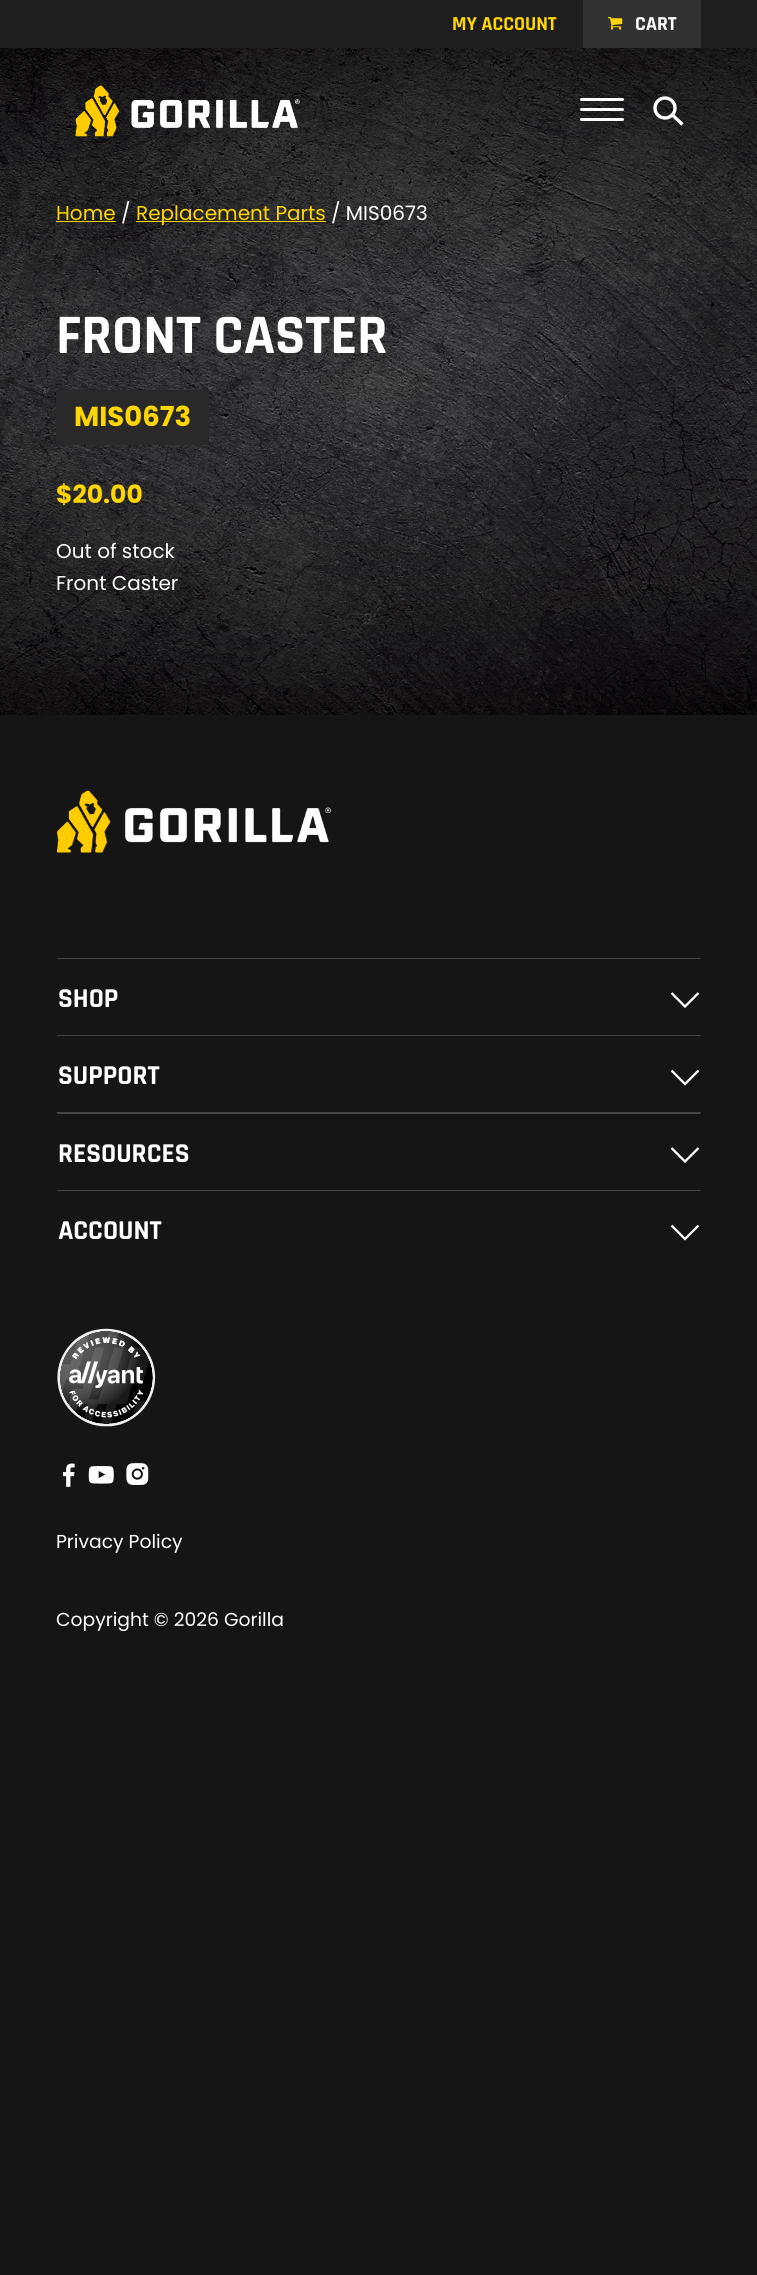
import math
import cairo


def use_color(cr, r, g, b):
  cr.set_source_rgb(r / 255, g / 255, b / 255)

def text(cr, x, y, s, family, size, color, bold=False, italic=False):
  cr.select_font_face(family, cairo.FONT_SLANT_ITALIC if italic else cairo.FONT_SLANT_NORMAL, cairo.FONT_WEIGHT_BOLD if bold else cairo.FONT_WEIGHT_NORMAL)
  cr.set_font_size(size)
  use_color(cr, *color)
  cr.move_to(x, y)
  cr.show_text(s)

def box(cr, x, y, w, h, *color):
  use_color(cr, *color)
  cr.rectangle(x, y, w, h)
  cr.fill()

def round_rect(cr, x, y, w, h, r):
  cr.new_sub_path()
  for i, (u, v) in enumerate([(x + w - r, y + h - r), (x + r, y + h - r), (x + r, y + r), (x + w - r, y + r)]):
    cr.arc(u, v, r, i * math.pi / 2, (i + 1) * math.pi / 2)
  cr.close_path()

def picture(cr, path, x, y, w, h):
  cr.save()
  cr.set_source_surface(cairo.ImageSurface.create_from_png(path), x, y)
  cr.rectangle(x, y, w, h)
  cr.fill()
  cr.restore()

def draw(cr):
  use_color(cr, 21, 21, 21)
  cr.paint()
  box(cr, 0, 0, 757, 48, 30, 30, 30)
  box(cr, 583, 0, 118, 48, 50, 50, 50)
  picture(cr, "img_01.png", 608, 17, 15, 13)
  picture(cr, "img_03.png", 0, 48, 757, 667)
  picture(cr, "img_02.png", 75, 85, 225, 52)
  use_color(cr, 255, 255, 255)
  round_rect(cr, 580, 98, 44, 3, 1.5)
  cr.fill()
  round_rect(cr, 580, 108, 44, 3, 1.5)
  cr.fill()
  round_rect(cr, 580, 118, 44, 3, 1.5)
  cr.fill()
  cr.arc(665, 108, 10, 0, 2 * math.pi)
  cr.set_line_width(3.4)
  cr.stroke()
  cr.new_path()
  cr.move_to(673, 115.5)
  cr.line_to(682.5, 124.5)
  cr.stroke()
  box(cr, 56, 221, 60, 1, 255, 213, 3)
  box(cr, 136, 221, 190, 1, 255, 213, 3)
  box(cr, 56, 390, 153, 55, 41, 41, 41)
  picture(cr, "img_04.png", 57, 790, 275, 63)
  use_color(cr, 69, 69, 69)
  cr.new_path()
  cr.move_to(56, 958)
  cr.line_to(701, 958)
  cr.line_to(700, 959)
  cr.line_to(58, 959)
  cr.close_path()
  cr.fill()
  cr.new_path()
  cr.move_to(671.5, 993)
  cr.line_to(685, 1006.5)
  cr.line_to(698.5, 993)
  use_color(cr, 255, 255, 255)
  cr.set_line_width(2.3)
  cr.stroke()
  use_color(cr, 69, 69, 69)
  cr.new_path()
  cr.move_to(56, 1035)
  cr.line_to(701, 1035)
  cr.line_to(700, 1036)
  cr.line_to(58, 1036)
  cr.close_path()
  cr.fill()
  cr.new_path()
  cr.move_to(671.5, 1070.5)
  cr.line_to(685, 1084)
  cr.line_to(698.5, 1070.5)
  use_color(cr, 255, 255, 255)
  cr.stroke()
  use_color(cr, 69, 69, 69)
  cr.new_path()
  cr.move_to(56, 1112)
  cr.line_to(701, 1112)
  cr.line_to(700, 1114)
  cr.line_to(58, 1114)
  cr.close_path()
  cr.fill()
  cr.new_path()
  cr.move_to(671.5, 1148)
  cr.line_to(685, 1161.5)
  cr.line_to(698.5, 1148)
  use_color(cr, 255, 255, 255)
  cr.stroke()
  use_color(cr, 69, 69, 69)
  cr.new_path()
  cr.move_to(56, 1190)
  cr.line_to(701, 1190)
  cr.line_to(700, 1191)
  cr.line_to(58, 1191)
  cr.close_path()
  cr.fill()
  cr.new_path()
  cr.move_to(671.5, 1225.5)
  cr.line_to(685, 1239)
  cr.line_to(698.5, 1225.5)
  use_color(cr, 255, 255, 255)
  cr.stroke()
  picture(cr, "img_05.png", 57, 1328, 99, 99)
  picture(cr, "img_06.png", 63, 1463, 12, 24)
  picture(cr, "img_07.png", 88, 1466, 26, 18)
  picture(cr, "img_08.png", 126, 1463, 23, 22)
  text(cr, 452, 30, "MY ACCOUNT", "Rajdhani", 20, (255, 213, 3), bold=True)
  text(cr, 635, 30, "CART", "Rajdhani", 20, (255, 255, 255), bold=True)
  text(cr, 56, 220, "Home", "Poppins", 20, (255, 213, 3))
  text(cr, 121, 220, "/", "Poppins", 20, (255, 255, 255))
  text(cr, 136, 220, "Replacement Parts", "Poppins", 20, (255, 213, 3))
  text(cr, 331, 220, "/ MIS0673", "Poppins", 20, (255, 255, 255))
  text(cr, 56, 353, "FRONT CASTER", "Rajdhani", 56.25, (255, 255, 255), bold=True)
  text(cr, 74, 426, "MIS0673", "Poppins", 27.5, (255, 213, 3), bold=True)
  text(cr, 56, 503, "$20.00", "Poppins", 25, (255, 213, 3), bold=True)
  text(cr, 56, 558, "Out of stock", "Poppins", 20, (255, 255, 255))
  text(cr, 56, 590, "Front Caster", "Poppins", 20, (255, 255, 255))
  text(cr, 58, 1007, "SHOP", "Rajdhani", 27.5, (255, 255, 255), bold=True)
  text(cr, 58, 1084, "SUPPORT", "Rajdhani", 27.5, (255, 255, 255), bold=True)
  text(cr, 58, 1162, "RESOURCES", "Rajdhani", 27.5, (255, 255, 255), bold=True)
  text(cr, 58, 1239, "ACCOUNT", "Rajdhani", 27.5, (255, 255, 255), bold=True)
  text(cr, 56, 1548, "Privacy Policy", "Poppins", 18.75, (255, 255, 255))
  text(cr, 56, 1626, "Copyright © 2026 Gorilla", "Poppins", 18.75, (255, 255, 255))


surface = cairo.ImageSurface(cairo.FORMAT_RGB24, 757, 2275)
cr = cairo.Context(surface)
options = cairo.FontOptions()
options.set_hint_metrics(cairo.HINT_METRICS_OFF)
options.set_hint_style(cairo.HINT_STYLE_NONE)
cr.set_font_options(options)
cr.set_miter_limit(4)
draw(cr)
surface.write_to_png("out.png")
